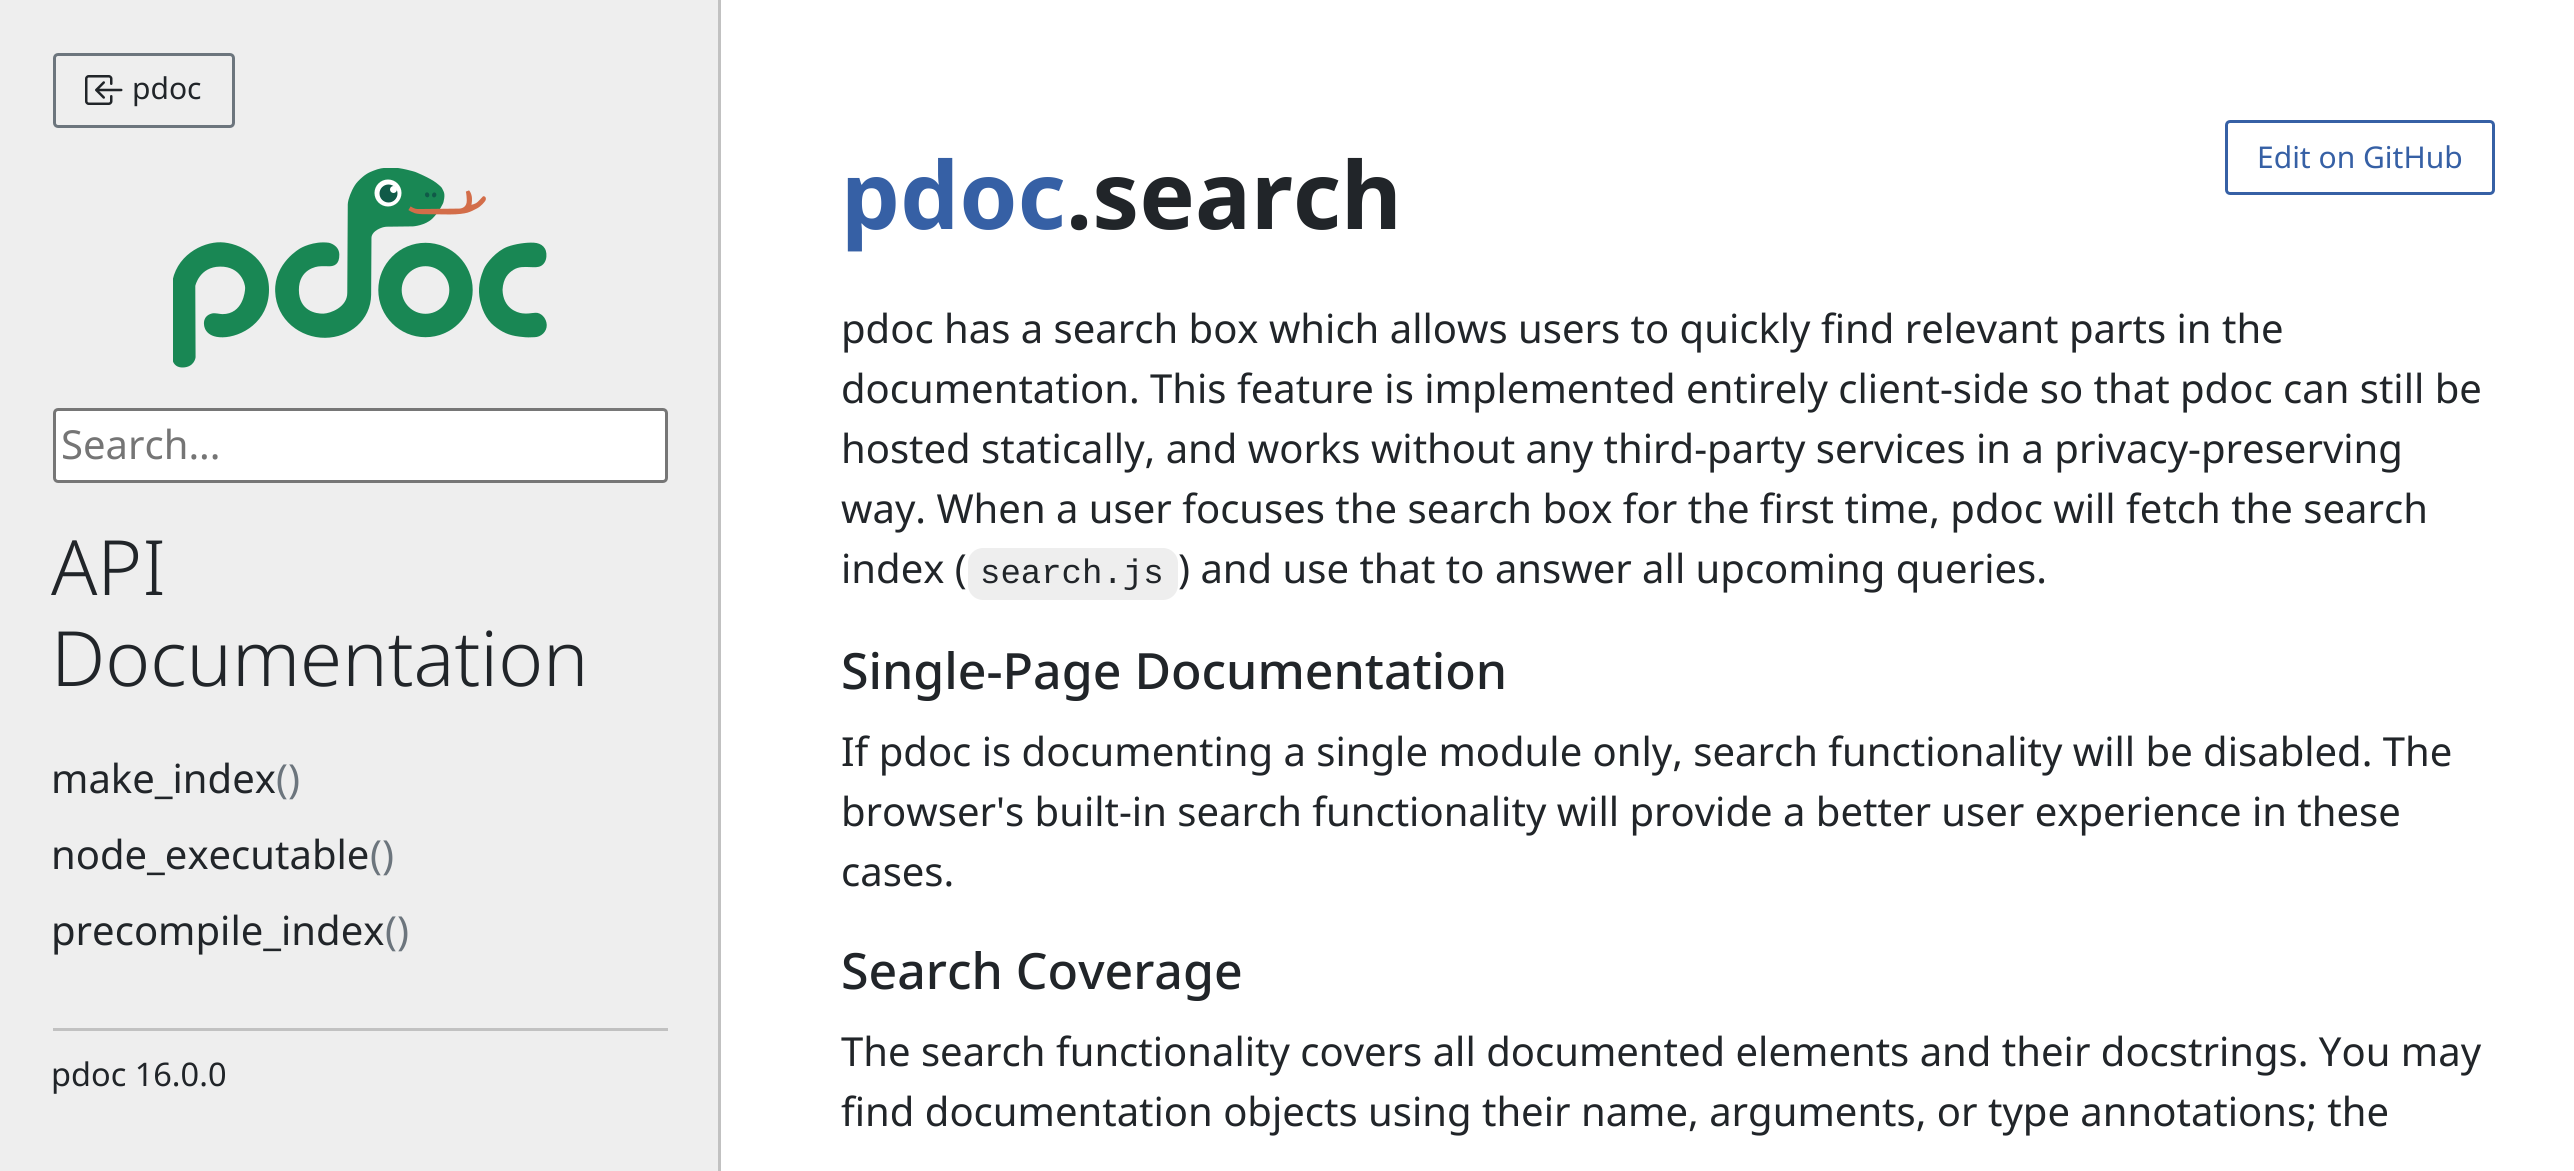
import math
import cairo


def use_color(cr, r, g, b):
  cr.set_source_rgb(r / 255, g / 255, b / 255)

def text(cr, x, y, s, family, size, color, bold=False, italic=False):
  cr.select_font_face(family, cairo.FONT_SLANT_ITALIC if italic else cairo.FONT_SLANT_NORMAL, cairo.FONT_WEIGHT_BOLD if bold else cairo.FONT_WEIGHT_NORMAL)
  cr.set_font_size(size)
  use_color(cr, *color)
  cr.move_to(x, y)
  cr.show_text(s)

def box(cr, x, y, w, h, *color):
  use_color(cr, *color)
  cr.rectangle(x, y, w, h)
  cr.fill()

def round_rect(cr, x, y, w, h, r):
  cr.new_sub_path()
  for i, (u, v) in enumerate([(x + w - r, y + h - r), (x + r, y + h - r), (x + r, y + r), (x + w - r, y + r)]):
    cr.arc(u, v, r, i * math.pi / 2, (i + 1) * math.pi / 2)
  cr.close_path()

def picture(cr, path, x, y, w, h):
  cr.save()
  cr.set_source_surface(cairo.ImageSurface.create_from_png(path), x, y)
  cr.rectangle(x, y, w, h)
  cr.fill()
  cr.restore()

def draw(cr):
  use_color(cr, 255, 255, 255)
  cr.paint()
  box(cr, 0, 0, 718, 1171, 238, 238, 238)
  box(cr, 718, 0, 3, 1171, 193, 193, 193)
  round_rect(cr, 54.5, 54.5, 179, 72, 3.5)
  use_color(cr, 108, 117, 125)
  cr.set_line_width(3)
  cr.stroke()
  picture(cr, "img_01.png", 85, 75, 38, 30)
  picture(cr, "img_02.png", 173, 168, 374, 200)
  use_color(cr, 255, 255, 255)
  round_rect(cr, 54.5, 409.5, 612, 72, 3.5)
  cr.fill_preserve()
  use_color(cr, 118, 118, 118)
  cr.stroke()
  box(cr, 53, 1028, 615, 3, 193, 193, 193)
  round_rect(cr, 2226.5, 121.5, 267, 72, 3.5)
  use_color(cr, 54, 96, 165)
  cr.stroke()
  use_color(cr, 238, 238, 238)
  round_rect(cr, 968, 548, 210, 52, 15)
  cr.fill()
  text(cr, 132, 99, "pdoc", "Noto Sans", 30, (33, 37, 41))
  text(cr, 61, 459, "Search...", "Noto Sans", 40, (117, 117, 117))
  text(cr, 51, 595, "API", "Noto Sans Light", 76.25, (33, 37, 41))
  text(cr, 51, 686, "Documentation", "Noto Sans Light", 76.25, (33, 37, 41))
  text(cr, 51, 793, "make_index", "Noto Sans", 40, (33, 37, 41))
  text(cr, 276, 793, "()", "Noto Sans", 40, (108, 117, 125))
  text(cr, 51, 869, "node_executable", "Noto Sans", 40, (33, 37, 41))
  text(cr, 370, 869, "()", "Noto Sans", 40, (108, 117, 125))
  text(cr, 51, 945, "precompile_index", "Noto Sans", 40, (33, 37, 41))
  text(cr, 385, 945, "()", "Noto Sans", 40, (108, 117, 125))
  text(cr, 51, 1086, "pdoc 16.0.0", "Noto Sans", 32.5, (33, 37, 41))
  text(cr, 841, 229, "pdoc", "Noto Sans", 93.5, (54, 96, 165), bold=True)
  text(cr, 1066, 229, ".search", "Noto Sans", 93.5, (33, 37, 41), bold=True)
  text(cr, 2257, 168, "Edit on GitHub", "Noto Sans", 30, (54, 96, 165))
  text(cr, 841, 343, "pdoc has a search box which allows users to quickly find relevant parts in the", "Noto Sans", 40, (33, 37, 41))
  text(cr, 841, 403, "documentation. This feature is implemented entirely client-side so that pdoc can still be", "Noto Sans", 40, (33, 37, 41))
  text(cr, 841, 463, "hosted statically, and works without any third-party services in a privacy-preserving", "Noto Sans", 40, (33, 37, 41))
  text(cr, 841, 523, "way. When a user focuses the search box for the first time, pdoc will fetch the search", "Noto Sans", 40, (33, 37, 41))
  text(cr, 841, 583, "index (", "Noto Sans", 40, (33, 37, 41))
  text(cr, 980, 583, "search.js", "Liberation Mono", 34, (33, 37, 41))
  text(cr, 1178, 583, ") and use that to answer all upcoming queries.", "Noto Sans", 40, (33, 37, 41))
  text(cr, 841, 689, "Single-Page Documentation", "Noto Sans Medium", 50, (33, 37, 41))
  text(cr, 841, 766, "If pdoc is documenting a single module only, search functionality will be disabled. The", "Noto Sans", 40, (33, 37, 41))
  text(cr, 841, 826, "browser's built-in search functionality will provide a better user experience in these", "Noto Sans", 40, (33, 37, 41))
  text(cr, 841, 886, "cases.", "Noto Sans", 40, (33, 37, 41))
  text(cr, 841, 989, "Search Coverage", "Noto Sans Medium", 50, (33, 37, 41))
  text(cr, 841, 1066, "The search functionality covers all documented elements and their docstrings. You may", "Noto Sans", 40, (33, 37, 41))
  text(cr, 841, 1126, "find documentation objects using their name, arguments, or type annotations; the", "Noto Sans", 40, (33, 37, 41))


surface = cairo.ImageSurface(cairo.FORMAT_RGB24, 2574, 1171)
cr = cairo.Context(surface)
options = cairo.FontOptions()
options.set_hint_metrics(cairo.HINT_METRICS_OFF)
options.set_hint_style(cairo.HINT_STYLE_NONE)
cr.set_font_options(options)
cr.set_miter_limit(4)
draw(cr)
surface.write_to_png("out.png")
